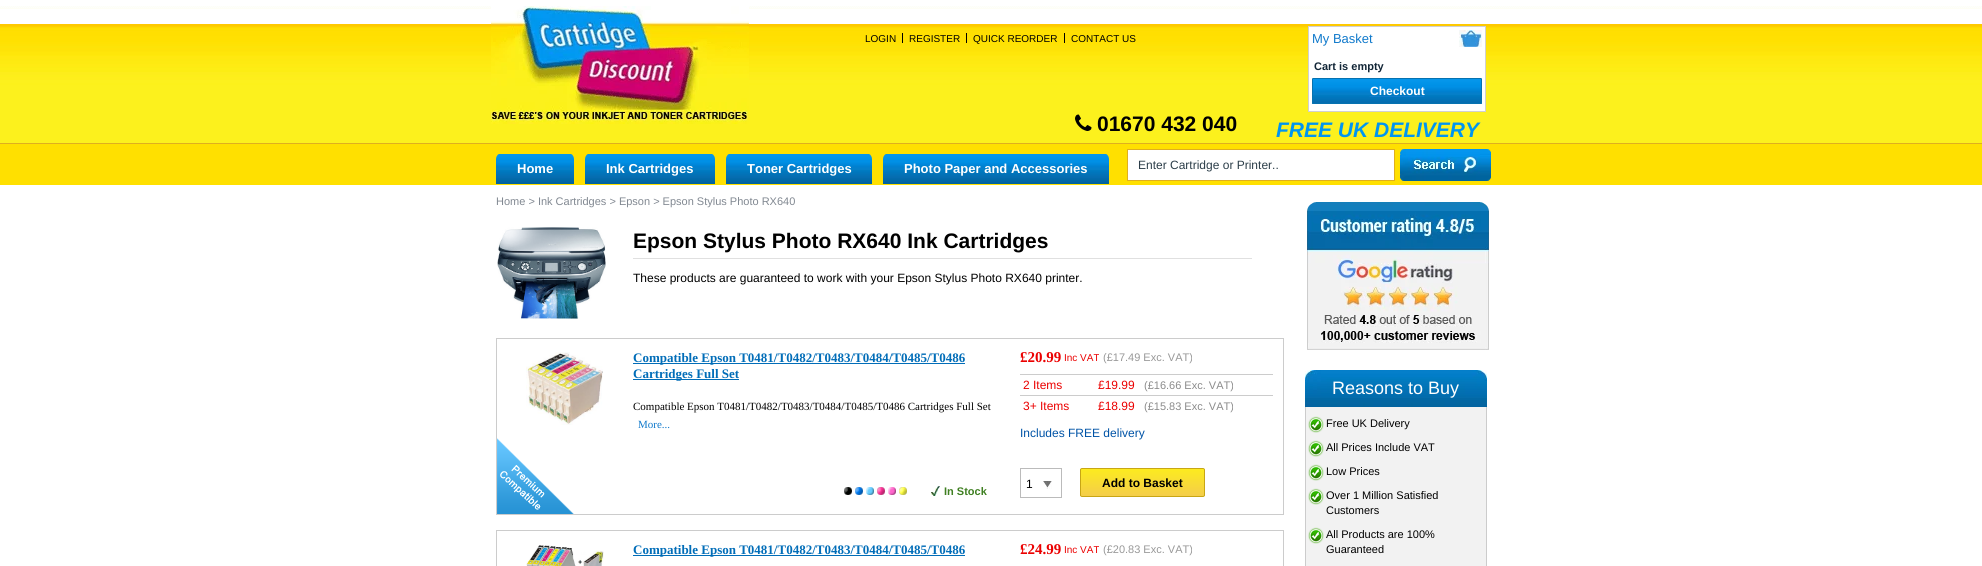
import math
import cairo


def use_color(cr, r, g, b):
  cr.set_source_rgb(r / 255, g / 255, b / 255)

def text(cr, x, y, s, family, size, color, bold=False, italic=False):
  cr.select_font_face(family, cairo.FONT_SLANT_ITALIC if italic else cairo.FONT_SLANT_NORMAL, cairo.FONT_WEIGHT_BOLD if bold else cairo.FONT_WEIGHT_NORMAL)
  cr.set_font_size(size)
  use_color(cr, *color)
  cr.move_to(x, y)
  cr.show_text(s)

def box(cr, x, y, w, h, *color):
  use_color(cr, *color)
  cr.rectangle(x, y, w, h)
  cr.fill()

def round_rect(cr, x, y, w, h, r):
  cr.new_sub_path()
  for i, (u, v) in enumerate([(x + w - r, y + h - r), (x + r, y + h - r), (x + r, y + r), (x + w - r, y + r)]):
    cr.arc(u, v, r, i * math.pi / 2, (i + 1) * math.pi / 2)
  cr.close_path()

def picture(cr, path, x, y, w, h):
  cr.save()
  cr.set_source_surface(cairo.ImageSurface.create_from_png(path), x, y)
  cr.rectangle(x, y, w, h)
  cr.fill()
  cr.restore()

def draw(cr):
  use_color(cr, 255, 255, 255)
  cr.paint()
  picture(cr, "img_01.png", 0, 6, 1982, 179)
  picture(cr, "img_02.png", 749, 6, 742, 2)
  picture(cr, "img_03.png", 491, 6, 258, 118)
  box(cr, 902, 33, 1, 10, 0, 0, 0)
  box(cr, 966, 33, 1, 10, 0, 0, 0)
  box(cr, 1064, 33, 1, 10, 0, 0, 0)
  use_color(cr, 255, 255, 255)
  cr.rectangle(1308.5, 26.5, 177, 85)
  cr.fill_preserve()
  use_color(cr, 208, 208, 208)
  cr.set_line_width(1)
  cr.stroke()
  picture(cr, "img_04.png", 1459, 30, 23, 17)
  picture(cr, "img_05.png", 1312, 79, 170, 25)
  round_rect(cr, 1312.5, 78.5, 169, 25, 0.5)
  use_color(cr, 6, 114, 176)
  cr.stroke()
  picture(cr, "img_06.png", 1075, 114, 17, 17)
  picture(cr, "img_07.png", 496, 154, 78, 30)
  picture(cr, "img_08.png", 585, 154, 130, 30)
  picture(cr, "img_09.png", 726, 154, 146, 30)
  picture(cr, "img_10.png", 883, 154, 226, 30)
  use_color(cr, 255, 255, 255)
  cr.rectangle(1127.5, 149.5, 267, 31)
  cr.fill_preserve()
  use_color(cr, 223, 175, 31)
  cr.stroke()
  picture(cr, "img_11.png", 1400, 149, 91, 32)
  picture(cr, "img_12.png", 497, 227, 109, 92)
  box(cr, 633, 258, 619, 1, 224, 224, 224)
  cr.rectangle(496.5, 338.5, 787, 176)
  use_color(cr, 204, 204, 204)
  cr.stroke()
  picture(cr, "img_13.png", 497, 438, 77, 76)
  picture(cr, "img_14.png", 526, 352, 77, 73)
  box(cr, 633, 363, 332, 1, 1, 109, 184)
  box(cr, 633, 379, 106, 1, 1, 109, 184)
  picture(cr, "img_15.png", 844, 487, 8, 8)
  picture(cr, "img_16.png", 855, 487, 8, 8)
  picture(cr, "img_17.png", 866, 487, 8, 8)
  picture(cr, "img_18.png", 877, 487, 8, 8)
  picture(cr, "img_19.png", 888, 487, 8, 8)
  picture(cr, "img_20.png", 899, 487, 8, 8)
  picture(cr, "img_21.png", 931, 486, 9, 10)
  box(cr, 1020, 374, 253, 1, 204, 204, 204)
  box(cr, 1020, 395, 253, 1, 204, 204, 204)
  cr.rectangle(1020.5, 468.5, 41, 29)
  use_color(cr, 187, 187, 187)
  cr.stroke()
  picture(cr, "img_22.png", 1043, 481, 9, 8)
  cr.save()
  round_rect(cr, 1080, 468, 125, 29, 2)
  cr.clip()
  gradient = cairo.LinearGradient(1143, 469, 1143, 496)
  gradient.add_color_stop_rgba(0, 0.988, 0.922, 0.122, 1)
  gradient.add_color_stop_rgba(1, 0.957, 0.804, 0.29, 1)
  cr.set_source(gradient)
  cr.rectangle(1080, 469, 125, 27)
  cr.fill()
  cr.restore()
  round_rect(cr, 1080.5, 468.5, 124, 28, 1.5)
  use_color(cr, 200, 166, 20)
  cr.stroke()
  cr.rectangle(496.5, 530.5, 787, 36)
  use_color(cr, 204, 204, 204)
  cr.stroke()
  picture(cr, "img_23.png", 526, 545, 78, 21)
  box(cr, 633, 555, 332, 1, 1, 109, 184)
  picture(cr, "img_24.png", 1307, 202, 182, 148)
  picture(cr, "img_25.png", 1305, 370, 182, 37)
  box(cr, 1306, 407, 180, 159, 242, 242, 242)
  box(cr, 1486, 407, 1, 159, 204, 204, 204)
  box(cr, 1305, 407, 1, 159, 204, 204, 204)
  picture(cr, "img_26.png", 1308, 416, 16, 17)
  picture(cr, "img_26.png", 1308, 440, 16, 17)
  picture(cr, "img_26.png", 1308, 464, 16, 17)
  picture(cr, "img_26.png", 1308, 488, 16, 17)
  picture(cr, "img_26.png", 1308, 527, 16, 17)
  text(cr, 865, 42, "LOGIN", "Liberation Sans", 10, (0, 0, 0))
  text(cr, 909, 42, "REGISTER", "Liberation Sans", 10, (0, 0, 0))
  text(cr, 973, 42, "QUICK REORDER", "Liberation Sans", 10, (0, 0, 0))
  text(cr, 1071, 42, "CONTACT US", "Liberation Sans", 10, (0, 0, 0))
  text(cr, 1312, 43, "My Basket", "Liberation Sans", 13, (16, 121, 203))
  text(cr, 1314, 70, "Cart is empty", "Liberation Sans", 11, (17, 37, 54), bold=True)
  text(cr, 1370, 95, "Checkout", "Liberation Sans", 12, (255, 255, 255), bold=True)
  text(cr, 1097, 131, "01670 432 040", "Liberation Sans", 21, (0, 0, 0), bold=True)
  text(cr, 1276, 137, "FREE UK DELIVERY", "Liberation Sans", 21, (0, 149, 241), bold=True, italic=True)
  text(cr, 517, 173, "Home", "Liberation Sans", 13, (255, 255, 255), bold=True)
  text(cr, 606, 173, "Ink Cartridges", "Liberation Sans", 13, (255, 255, 255), bold=True)
  text(cr, 747, 173, "Toner Cartridges", "Liberation Sans", 13, (255, 255, 255), bold=True)
  text(cr, 904, 173, "Photo Paper and Accessories", "Liberation Sans", 13, (255, 255, 255), bold=True)
  text(cr, 1138, 169, "Enter Cartridge or Printer..", "Liberation Sans", 12, (44, 62, 73))
  text(cr, 496, 205, "Home > Ink Cartridges > Epson > Epson Stylus Photo RX640", "Liberation Sans", 11, (129, 136, 145))
  text(cr, 633, 248, "Epson Stylus Photo RX640 Ink Cartridges", "Liberation Sans", 21, (0, 0, 0), bold=True)
  text(cr, 633, 282, "These products are guaranteed to work with your Epson Stylus Photo RX640 printer.", "Liberation Sans", 12, (0, 0, 0))
  text(cr, 633, 362, "Compatible Epson T0481/T0482/T0483/T0484/T0485/T0486", "Liberation Serif", 13, (1, 109, 184), bold=True)
  text(cr, 633, 378, "Cartridges Full Set", "Liberation Serif", 13, (1, 109, 184), bold=True)
  text(cr, 633, 410, "Compatible Epson T0481/T0482/T0483/T0484/T0485/T0486 Cartridges Full Set", "Liberation Serif", 11, (0, 0, 0))
  text(cr, 638, 428, "More...", "Liberation Serif", 11, (16, 121, 203))
  text(cr, 944, 495, "In Stock", "Liberation Sans", 11, (64, 128, 34), bold=True)
  text(cr, 1020, 362, "£20.99", "Liberation Serif", 15, (235, 0, 0), bold=True)
  text(cr, 1064, 361, "Inc VAT", "Liberation Sans", 10, (235, 0, 0))
  text(cr, 1103, 361, "(£17.49 Exc. VAT)", "Liberation Sans", 11, (152, 152, 152))
  text(cr, 1023, 389, "2 Items", "Liberation Sans", 12, (235, 0, 0))
  text(cr, 1098, 389, "£19.99", "Liberation Sans", 12, (235, 0, 0))
  text(cr, 1144, 389, "(£16.66 Exc. VAT)", "Liberation Sans", 11, (139, 139, 139))
  text(cr, 1023, 410, "3+ Items", "Liberation Sans", 12, (235, 0, 0))
  text(cr, 1098, 410, "£18.99", "Liberation Sans", 12, (235, 0, 0))
  text(cr, 1144, 410, "(£15.83 Exc. VAT)", "Liberation Sans", 11, (139, 139, 139))
  text(cr, 1020, 437, "Includes FREE delivery", "Liberation Sans", 12, (0, 83, 166))
  text(cr, 1026, 488, "1", "Liberation Sans", 12, (0, 0, 0))
  text(cr, 1102, 487, "Add to Basket", "Liberation Sans", 12, (0, 0, 0), bold=True)
  text(cr, 633, 554, "Compatible Epson T0481/T0482/T0483/T0484/T0485/T0486", "Liberation Serif", 13, (1, 109, 184), bold=True)
  text(cr, 1020, 554, "£24.99", "Liberation Serif", 15, (235, 0, 0), bold=True)
  text(cr, 1064, 553, "Inc VAT", "Liberation Sans", 10, (235, 0, 0))
  text(cr, 1103, 553, "(£20.83 Exc. VAT)", "Liberation Sans", 11, (152, 152, 152))
  text(cr, 1332, 394, "Reasons to Buy", "Liberation Sans", 18, (255, 255, 255))
  text(cr, 1326, 427, "Free UK Delivery", "Liberation Sans", 11, (0, 0, 0))
  text(cr, 1326, 451, "All Prices Include VAT", "Liberation Sans", 11, (0, 0, 0))
  text(cr, 1326, 475, "Low Prices", "Liberation Sans", 11, (0, 0, 0))
  text(cr, 1326, 499, "Over 1 Million Satisfied", "Liberation Sans", 11, (0, 0, 0))
  text(cr, 1326, 514, "Customers", "Liberation Sans", 11, (0, 0, 0))
  text(cr, 1326, 538, "All Products are 100%", "Liberation Sans", 11, (0, 0, 0))
  text(cr, 1326, 553, "Guaranteed", "Liberation Sans", 11, (0, 0, 0))


surface = cairo.ImageSurface(cairo.FORMAT_RGB24, 1982, 566)
cr = cairo.Context(surface)
options = cairo.FontOptions()
options.set_hint_metrics(cairo.HINT_METRICS_OFF)
options.set_hint_style(cairo.HINT_STYLE_NONE)
cr.set_font_options(options)
cr.set_miter_limit(4)
draw(cr)
surface.write_to_png("out.png")
